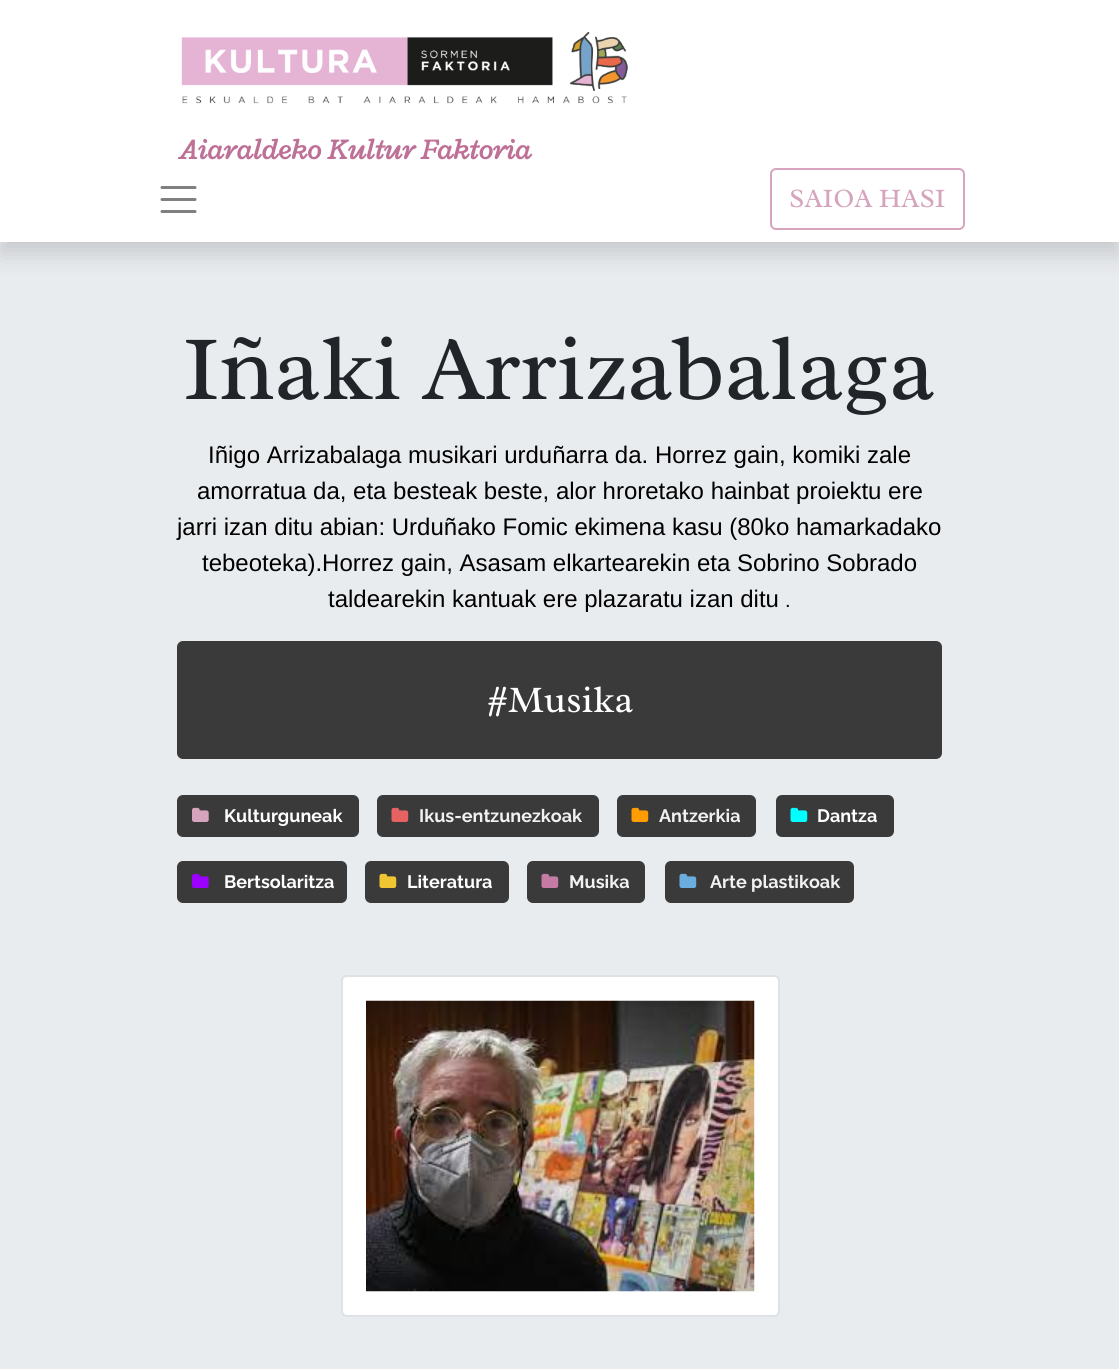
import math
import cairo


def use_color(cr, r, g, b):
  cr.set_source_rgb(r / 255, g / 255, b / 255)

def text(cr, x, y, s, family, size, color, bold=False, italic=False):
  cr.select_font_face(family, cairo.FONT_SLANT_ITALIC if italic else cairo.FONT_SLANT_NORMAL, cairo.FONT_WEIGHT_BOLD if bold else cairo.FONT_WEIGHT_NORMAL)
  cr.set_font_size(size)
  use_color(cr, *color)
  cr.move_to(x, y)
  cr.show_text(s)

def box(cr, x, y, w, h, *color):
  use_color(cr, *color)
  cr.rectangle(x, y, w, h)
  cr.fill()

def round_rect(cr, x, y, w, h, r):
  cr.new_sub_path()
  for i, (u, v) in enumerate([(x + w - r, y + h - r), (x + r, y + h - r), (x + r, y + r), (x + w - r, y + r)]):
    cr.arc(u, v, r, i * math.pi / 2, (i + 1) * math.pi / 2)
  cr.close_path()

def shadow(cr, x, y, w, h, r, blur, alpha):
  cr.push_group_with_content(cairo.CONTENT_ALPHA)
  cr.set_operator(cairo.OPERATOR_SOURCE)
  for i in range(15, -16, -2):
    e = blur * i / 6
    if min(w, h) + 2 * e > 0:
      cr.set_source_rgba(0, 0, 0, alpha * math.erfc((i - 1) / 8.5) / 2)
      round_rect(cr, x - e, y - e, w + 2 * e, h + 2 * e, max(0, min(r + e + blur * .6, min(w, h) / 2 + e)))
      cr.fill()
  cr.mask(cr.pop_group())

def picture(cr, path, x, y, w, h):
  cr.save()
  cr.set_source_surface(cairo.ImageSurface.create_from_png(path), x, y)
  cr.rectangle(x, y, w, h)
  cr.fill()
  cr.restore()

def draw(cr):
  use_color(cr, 233, 236, 239)
  cr.paint()
  use_color(cr, 0, 0, 0)
  shadow(cr, 0, 12, 1119, 242, 0, 12, 0.15)
  box(cr, 0, 0, 1119, 242, 255, 255, 255)
  picture(cr, "img_01.png", 181, 32, 447, 72)
  cr.new_path()
  cr.move_to(162, 187.5)
  cr.line_to(195, 187.5)
  cr.move_to(162, 199.5)
  cr.line_to(195, 199.5)
  cr.move_to(162, 211.5)
  cr.line_to(195, 211.5)
  use_color(cr, 128, 128, 128)
  cr.set_line_width(3)
  cr.set_line_cap(cairo.LINE_CAP_ROUND)
  cr.stroke()
  round_rect(cr, 771, 169, 193, 60, 5)
  use_color(cr, 214, 165, 189)
  cr.set_line_width(2)
  cr.set_line_cap(cairo.LINE_CAP_BUTT)
  cr.stroke()
  use_color(cr, 58, 58, 58)
  round_rect(cr, 177, 641, 765, 118, 6)
  cr.fill()
  round_rect(cr, 177, 795, 182, 42, 6)
  cr.fill()
  picture(cr, "img_02.png", 192, 807, 17, 15)
  round_rect(cr, 377, 795, 222, 42, 6)
  cr.fill()
  picture(cr, "img_03.png", 391, 807, 18, 15)
  round_rect(cr, 617, 795, 139, 42, 6)
  cr.fill()
  picture(cr, "img_04.png", 631, 807, 18, 15)
  round_rect(cr, 776, 795, 118, 42, 6)
  cr.fill()
  picture(cr, "img_05.png", 790, 807, 18, 15)
  round_rect(cr, 177, 861, 170, 42, 6)
  cr.fill()
  picture(cr, "img_06.png", 192, 873, 17, 15)
  round_rect(cr, 365, 861, 144, 42, 6)
  cr.fill()
  picture(cr, "img_07.png", 379, 873, 18, 15)
  round_rect(cr, 527, 861, 118, 42, 6)
  cr.fill()
  picture(cr, "img_08.png", 541, 873, 18, 15)
  round_rect(cr, 665, 861, 189, 42, 6)
  cr.fill()
  picture(cr, "img_09.png", 679, 873, 18, 15)
  use_color(cr, 255, 255, 255)
  round_rect(cr, 342, 976, 437, 340, 5)
  cr.fill_preserve()
  use_color(cr, 222, 226, 230)
  cr.stroke()
  picture(cr, "img_10.png", 366, 1000, 389, 292)
  text(cr, 179, 159, "Aiaraldeko Kultur Faktoria", "Radley", 30, (190, 112, 150), bold=True, italic=True)
  text(cr, 789, 207, "SAIOA HASI", "Radley", 27, (214, 165, 189))
  text(cr, 183, 399, "Iñaki Arrizabalaga", "Radley", 93, (33, 37, 41))
  text(cr, 208, 463, "Iñigo Arrizabalaga musikari urduñarra da. Horrez gain, komiki zale", "Liberation Sans", 24, (0, 0, 0))
  text(cr, 197, 499, "amorratua da, eta besteak beste, alor hroretako hainbat proiektu ere", "Liberation Sans", 24, (0, 0, 0))
  text(cr, 177, 535, "jarri izan ditu abian: Urduñako Fomic ekimena kasu (80ko hamarkadako", "Liberation Sans", 24, (0, 0, 0))
  text(cr, 202, 571, "tebeoteka).Horrez gain, Asasam elkartearekin eta Sobrino Sobrado", "Liberation Sans", 24, (0, 0, 0))
  text(cr, 328, 607, "taldearekin kantuak ere plazaratu izan ditu", "Liberation Sans", 24, (0, 0, 0))
  text(cr, 785, 607, ".", "Liberation Sans", 20, (0, 0, 0))
  text(cr, 487, 712, "#Musika", "Radley", 38, (255, 255, 255))
  text(cr, 224, 822, "Kulturguneak", "Raleway", 18, (255, 255, 255), bold=True)
  text(cr, 419, 822, "Ikus-entzunezkoak", "Raleway", 18, (242, 241, 242), bold=True)
  text(cr, 659, 822, "Antzerkia", "Raleway", 18, (242, 241, 242), bold=True)
  text(cr, 817, 822, "Dantza", "Raleway", 18, (255, 255, 255), bold=True)
  text(cr, 224, 888, "Bertsolaritza", "Raleway", 18, (255, 255, 255), bold=True)
  text(cr, 407, 888, "Literatura", "Raleway", 18, (255, 255, 255), bold=True)
  text(cr, 569, 888, "Musika", "Raleway", 18, (242, 241, 242), bold=True)
  text(cr, 710, 888, "Arte plastikoak", "Raleway", 18, (242, 241, 242), bold=True)


surface = cairo.ImageSurface(cairo.FORMAT_RGB24, 1119, 1369)
cr = cairo.Context(surface)
options = cairo.FontOptions()
options.set_hint_metrics(cairo.HINT_METRICS_OFF)
options.set_hint_style(cairo.HINT_STYLE_NONE)
cr.set_font_options(options)
cr.set_miter_limit(4)
draw(cr)
surface.write_to_png("out.png")
